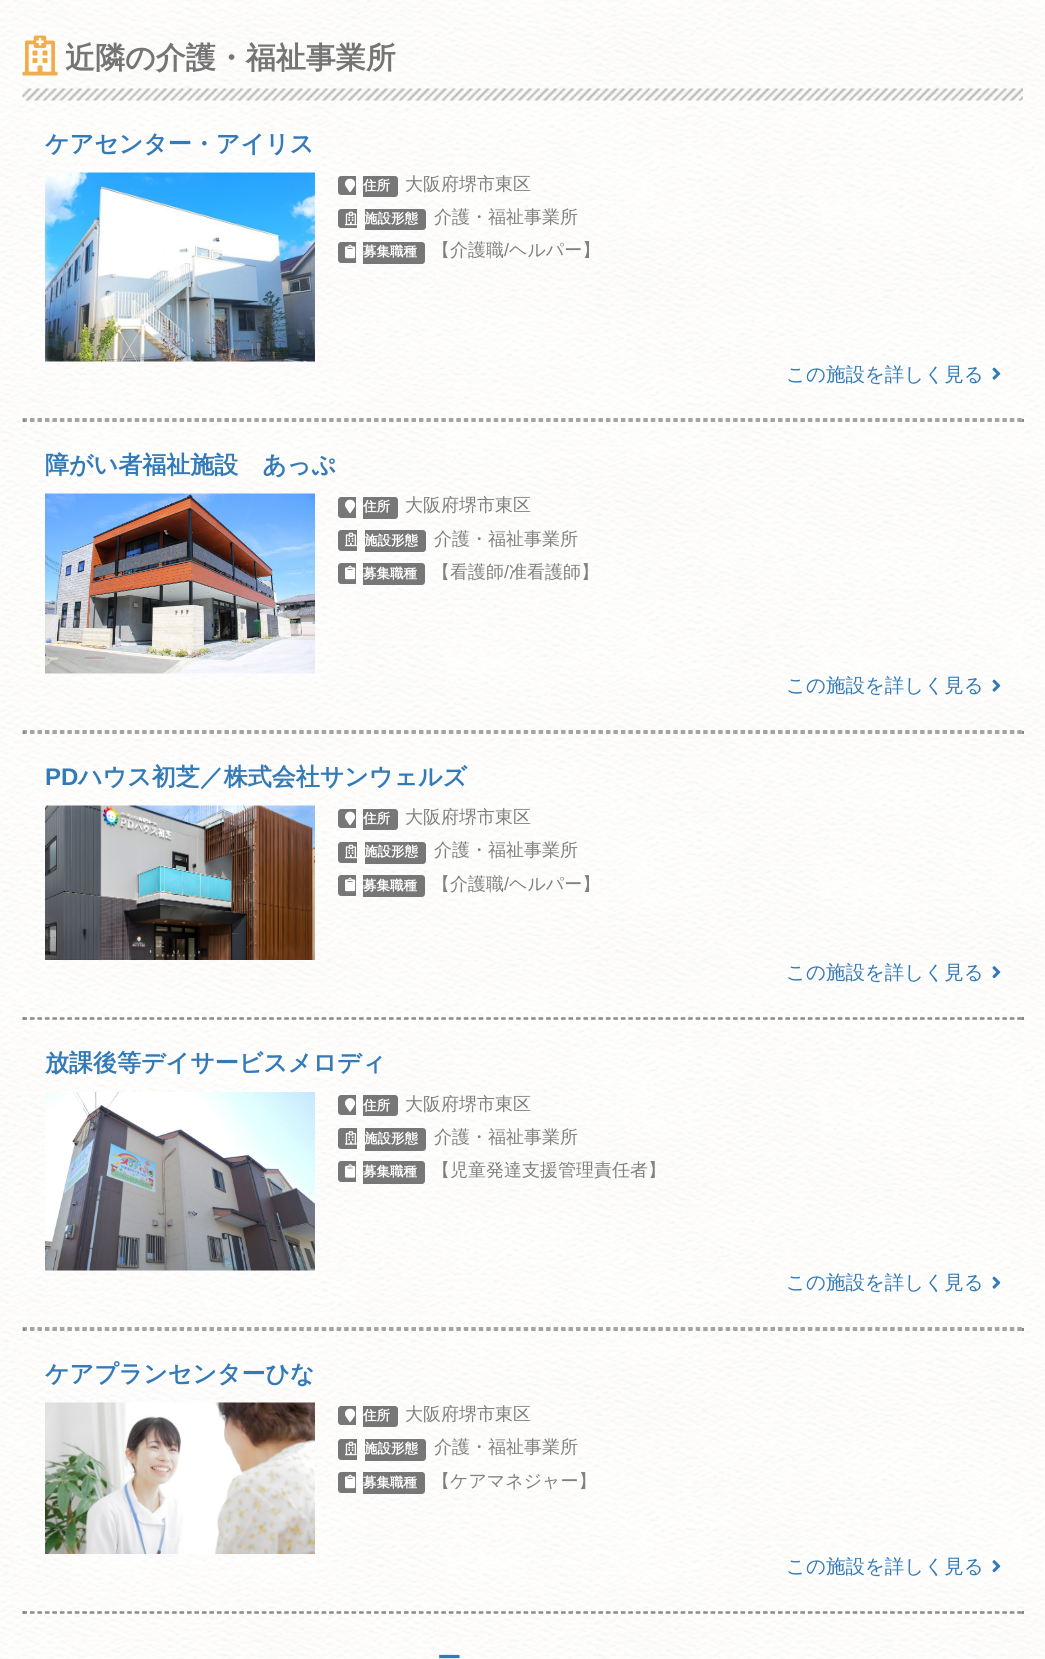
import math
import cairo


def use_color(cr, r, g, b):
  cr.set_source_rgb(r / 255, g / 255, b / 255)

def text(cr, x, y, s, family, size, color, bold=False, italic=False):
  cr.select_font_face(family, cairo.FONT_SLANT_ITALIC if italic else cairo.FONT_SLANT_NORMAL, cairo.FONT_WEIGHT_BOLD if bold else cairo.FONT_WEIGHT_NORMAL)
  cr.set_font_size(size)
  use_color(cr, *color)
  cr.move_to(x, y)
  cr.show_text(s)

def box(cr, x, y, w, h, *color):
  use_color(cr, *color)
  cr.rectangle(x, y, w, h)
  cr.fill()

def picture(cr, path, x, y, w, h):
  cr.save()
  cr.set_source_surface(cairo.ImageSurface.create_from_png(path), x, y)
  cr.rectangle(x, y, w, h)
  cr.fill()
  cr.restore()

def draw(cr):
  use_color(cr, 255, 255, 255)
  cr.paint()
  picture(cr, "img_01.png", 0, 0, 1045, 1659)
  picture(cr, "img_02.png", 22, 35, 36, 41)
  picture(cr, "img_03.png", 22, 88, 1001, 13)
  picture(cr, "img_04.png", 45, 172, 270, 190)
  use_color(cr, 119, 119, 119)
  cr.new_path()
  cr.move_to(341, 176)
  cr.line_to(356, 176)
  cr.line_to(356, 195)
  cr.line_to(341, 195)
  cr.curve_to(339.5, 195, 338, 193.5, 338, 192)
  cr.line_to(338, 179)
  cr.curve_to(338, 177.5, 339.5, 176, 341, 176)
  cr.close_path()
  cr.fill()
  cr.new_path()
  cr.move_to(363, 176)
  cr.line_to(395, 176)
  cr.curve_to(396.5, 176, 398, 177.5, 398, 179)
  cr.line_to(398, 194)
  cr.curve_to(398, 195.5, 396.5, 197, 395, 197)
  cr.line_to(363, 197)
  cr.close_path()
  cr.fill()
  picture(cr, "img_05.png", 345, 178, 11, 15)
  cr.new_path()
  cr.move_to(341, 209)
  cr.line_to(357, 209)
  cr.line_to(357, 228)
  cr.line_to(341, 228)
  cr.curve_to(339.5, 228, 338, 226.5, 338, 225)
  cr.line_to(338, 212)
  cr.curve_to(338, 210.5, 339.5, 209, 341, 209)
  cr.close_path()
  cr.fill()
  cr.new_path()
  cr.move_to(365, 209)
  cr.line_to(423, 209)
  cr.curve_to(424.5, 209, 426, 210.5, 426, 212)
  cr.line_to(426, 227)
  cr.curve_to(426, 228.5, 424.5, 230, 423, 230)
  cr.line_to(365, 230)
  cr.close_path()
  cr.fill()
  picture(cr, "img_06.png", 345, 211, 12, 15)
  cr.new_path()
  cr.move_to(341, 242)
  cr.line_to(356, 242)
  cr.line_to(356, 263)
  cr.line_to(341, 263)
  cr.curve_to(339.5, 263, 338, 261.5, 338, 260)
  cr.line_to(338, 245)
  cr.curve_to(338, 243.5, 339.5, 242, 341, 242)
  cr.close_path()
  cr.fill()
  cr.new_path()
  cr.move_to(363, 242)
  cr.line_to(422, 242)
  cr.curve_to(423.5, 242, 425, 243.5, 425, 245)
  cr.line_to(425, 261)
  cr.curve_to(425, 262.5, 423.5, 264, 422, 264)
  cr.line_to(363, 264)
  cr.close_path()
  cr.fill()
  picture(cr, "img_07.png", 345, 244, 11, 15)
  picture(cr, "img_08.png", 992, 367, 9, 13)
  cr.new_path()
  cr.move_to(22.5, 419)
  cr.line_to(1023, 419)
  use_color(cr, 136, 136, 136)
  cr.set_line_width(1.5)
  cr.set_dash([4.5, 2.98])
  cr.stroke()
  box(cr, 1022, 419, 2, 3, 136, 136, 136)
  cr.new_path()
  cr.move_to(22.5, 421)
  cr.line_to(1023, 421)
  cr.stroke()
  box(cr, 23, 419, 2, 3, 136, 136, 136)
  picture(cr, "img_09.png", 45, 493, 270, 181)
  use_color(cr, 119, 119, 119)
  cr.new_path()
  cr.move_to(341, 497)
  cr.line_to(356, 497)
  cr.line_to(356, 518)
  cr.line_to(341, 518)
  cr.curve_to(339.5, 518, 338, 516.5, 338, 515)
  cr.line_to(338, 500)
  cr.curve_to(338, 498.5, 339.5, 497, 341, 497)
  cr.close_path()
  cr.fill()
  cr.new_path()
  cr.move_to(363, 497)
  cr.line_to(395, 497)
  cr.curve_to(396.5, 497, 398, 498.5, 398, 500)
  cr.line_to(398, 516)
  cr.curve_to(398, 517.5, 396.5, 519, 395, 519)
  cr.line_to(363, 519)
  cr.close_path()
  cr.fill()
  picture(cr, "img_05.png", 345, 499, 11, 15)
  cr.new_path()
  cr.move_to(341, 530)
  cr.line_to(357, 530)
  cr.line_to(357, 551)
  cr.line_to(341, 551)
  cr.curve_to(339.5, 551, 338, 549.5, 338, 548)
  cr.line_to(338, 533)
  cr.curve_to(338, 531.5, 339.5, 530, 341, 530)
  cr.close_path()
  cr.fill()
  cr.new_path()
  cr.move_to(365, 530)
  cr.line_to(423, 530)
  cr.curve_to(424.5, 530, 426, 531.5, 426, 533)
  cr.line_to(426, 549)
  cr.curve_to(426, 550.5, 424.5, 552, 423, 552)
  cr.line_to(365, 552)
  cr.close_path()
  cr.fill()
  picture(cr, "img_06.png", 345, 532, 12, 15)
  cr.new_path()
  cr.move_to(341, 563)
  cr.line_to(356, 563)
  cr.line_to(356, 584)
  cr.line_to(341, 584)
  cr.curve_to(339.5, 584, 338, 582.5, 338, 581)
  cr.line_to(338, 566)
  cr.curve_to(338, 564.5, 339.5, 563, 341, 563)
  cr.close_path()
  cr.fill()
  cr.new_path()
  cr.move_to(363, 563)
  cr.line_to(422, 563)
  cr.curve_to(423.5, 563, 425, 564.5, 425, 566)
  cr.line_to(425, 582)
  cr.curve_to(425, 583.5, 423.5, 585, 422, 585)
  cr.line_to(363, 585)
  cr.close_path()
  cr.fill()
  picture(cr, "img_07.png", 345, 565, 11, 15)
  picture(cr, "img_10.png", 992, 679, 9, 13)
  cr.new_path()
  cr.move_to(22.5, 731)
  cr.line_to(1023, 731)
  use_color(cr, 136, 136, 136)
  cr.stroke()
  box(cr, 1022, 731, 2, 3, 136, 136, 136)
  cr.new_path()
  cr.move_to(22.5, 733)
  cr.line_to(1023, 733)
  cr.stroke()
  box(cr, 23, 731, 2, 3, 136, 136, 136)
  picture(cr, "img_11.png", 45, 805, 270, 155)
  use_color(cr, 119, 119, 119)
  cr.new_path()
  cr.move_to(341, 809)
  cr.line_to(356, 809)
  cr.line_to(356, 828)
  cr.line_to(341, 828)
  cr.curve_to(339.5, 828, 338, 826.5, 338, 825)
  cr.line_to(338, 812)
  cr.curve_to(338, 810.5, 339.5, 809, 341, 809)
  cr.close_path()
  cr.fill()
  cr.new_path()
  cr.move_to(363, 809)
  cr.line_to(395, 809)
  cr.curve_to(396.5, 809, 398, 810.5, 398, 812)
  cr.line_to(398, 827)
  cr.curve_to(398, 828.5, 396.5, 830, 395, 830)
  cr.line_to(363, 830)
  cr.close_path()
  cr.fill()
  picture(cr, "img_05.png", 345, 811, 11, 15)
  cr.new_path()
  cr.move_to(341, 842)
  cr.line_to(357, 842)
  cr.line_to(357, 863)
  cr.line_to(341, 863)
  cr.curve_to(339.5, 863, 338, 861.5, 338, 860)
  cr.line_to(338, 845)
  cr.curve_to(338, 843.5, 339.5, 842, 341, 842)
  cr.close_path()
  cr.fill()
  cr.new_path()
  cr.move_to(365, 842)
  cr.line_to(423, 842)
  cr.curve_to(424.5, 842, 426, 843.5, 426, 845)
  cr.line_to(426, 861)
  cr.curve_to(426, 862.5, 424.5, 864, 423, 864)
  cr.line_to(365, 864)
  cr.close_path()
  cr.fill()
  picture(cr, "img_06.png", 345, 844, 12, 15)
  cr.new_path()
  cr.move_to(341, 875)
  cr.line_to(356, 875)
  cr.line_to(356, 896)
  cr.line_to(341, 896)
  cr.curve_to(339.5, 896, 338, 894.5, 338, 893)
  cr.line_to(338, 878)
  cr.curve_to(338, 876.5, 339.5, 875, 341, 875)
  cr.close_path()
  cr.fill()
  cr.new_path()
  cr.move_to(363, 875)
  cr.line_to(422, 875)
  cr.curve_to(423.5, 875, 425, 876.5, 425, 878)
  cr.line_to(425, 894)
  cr.curve_to(425, 895.5, 423.5, 897, 422, 897)
  cr.line_to(363, 897)
  cr.close_path()
  cr.fill()
  picture(cr, "img_07.png", 345, 877, 11, 15)
  picture(cr, "img_12.png", 992, 966, 9, 13)
  cr.new_path()
  cr.move_to(22.5, 1018)
  cr.line_to(1023, 1018)
  use_color(cr, 136, 136, 136)
  cr.stroke()
  box(cr, 1022, 1017, 2, 3, 136, 136, 136)
  cr.new_path()
  cr.move_to(22.5, 1019)
  cr.line_to(1023, 1019)
  cr.stroke()
  box(cr, 23, 1017, 2, 3, 136, 136, 136)
  picture(cr, "img_13.png", 45, 1092, 270, 179)
  use_color(cr, 119, 119, 119)
  cr.new_path()
  cr.move_to(341, 1095)
  cr.line_to(356, 1095)
  cr.line_to(356, 1115)
  cr.line_to(341, 1115)
  cr.curve_to(339.5, 1115, 338, 1113.5, 338, 1112)
  cr.line_to(338, 1098)
  cr.curve_to(338, 1096.5, 339.5, 1095, 341, 1095)
  cr.close_path()
  cr.fill()
  cr.new_path()
  cr.move_to(363, 1095)
  cr.line_to(395, 1095)
  cr.curve_to(396.5, 1095, 398, 1096.5, 398, 1098)
  cr.line_to(398, 1113)
  cr.curve_to(398, 1114.5, 396.5, 1116, 395, 1116)
  cr.line_to(363, 1116)
  cr.close_path()
  cr.fill()
  picture(cr, "img_14.png", 345, 1098, 11, 14)
  cr.new_path()
  cr.move_to(341, 1128)
  cr.line_to(357, 1128)
  cr.line_to(357, 1149)
  cr.line_to(341, 1149)
  cr.curve_to(339.5, 1149, 338, 1147.5, 338, 1146)
  cr.line_to(338, 1131)
  cr.curve_to(338, 1129.5, 339.5, 1128, 341, 1128)
  cr.close_path()
  cr.fill()
  cr.new_path()
  cr.move_to(365, 1128)
  cr.line_to(423, 1128)
  cr.curve_to(424.5, 1128, 426, 1129.5, 426, 1131)
  cr.line_to(426, 1148)
  cr.curve_to(426, 1149.5, 424.5, 1151, 423, 1151)
  cr.line_to(365, 1151)
  cr.close_path()
  cr.fill()
  picture(cr, "img_15.png", 345, 1131, 12, 14)
  cr.new_path()
  cr.move_to(341, 1161)
  cr.line_to(356, 1161)
  cr.line_to(356, 1182)
  cr.line_to(341, 1182)
  cr.curve_to(339.5, 1182, 338, 1180.5, 338, 1179)
  cr.line_to(338, 1164)
  cr.curve_to(338, 1162.5, 339.5, 1161, 341, 1161)
  cr.close_path()
  cr.fill()
  cr.new_path()
  cr.move_to(363, 1161)
  cr.line_to(422, 1161)
  cr.curve_to(423.5, 1161, 425, 1162.5, 425, 1164)
  cr.line_to(425, 1181)
  cr.curve_to(425, 1182.5, 423.5, 1184, 422, 1184)
  cr.line_to(363, 1184)
  cr.close_path()
  cr.fill()
  picture(cr, "img_16.png", 345, 1164, 11, 14)
  picture(cr, "img_17.png", 992, 1276, 9, 13)
  cr.new_path()
  cr.move_to(22.5, 1328)
  cr.line_to(1023, 1328)
  use_color(cr, 136, 136, 136)
  cr.stroke()
  box(cr, 1022, 1328, 2, 3, 136, 136, 136)
  cr.new_path()
  cr.move_to(22.5, 1330)
  cr.line_to(1023, 1330)
  cr.stroke()
  box(cr, 23, 1328, 2, 3, 136, 136, 136)
  picture(cr, "img_18.png", 45, 1402, 270, 152)
  use_color(cr, 119, 119, 119)
  cr.new_path()
  cr.move_to(341, 1406)
  cr.line_to(356, 1406)
  cr.line_to(356, 1425)
  cr.line_to(341, 1425)
  cr.curve_to(339.5, 1425, 338, 1423.5, 338, 1422)
  cr.line_to(338, 1409)
  cr.curve_to(338, 1407.5, 339.5, 1406, 341, 1406)
  cr.close_path()
  cr.fill()
  cr.new_path()
  cr.move_to(363, 1406)
  cr.line_to(395, 1406)
  cr.curve_to(396.5, 1406, 398, 1407.5, 398, 1409)
  cr.line_to(398, 1424)
  cr.curve_to(398, 1425.5, 396.5, 1427, 395, 1427)
  cr.line_to(363, 1427)
  cr.close_path()
  cr.fill()
  picture(cr, "img_05.png", 345, 1408, 11, 15)
  cr.new_path()
  cr.move_to(341, 1439)
  cr.line_to(357, 1439)
  cr.line_to(357, 1460)
  cr.line_to(341, 1460)
  cr.curve_to(339.5, 1460, 338, 1458.5, 338, 1457)
  cr.line_to(338, 1442)
  cr.curve_to(338, 1440.5, 339.5, 1439, 341, 1439)
  cr.close_path()
  cr.fill()
  cr.new_path()
  cr.move_to(365, 1439)
  cr.line_to(423, 1439)
  cr.curve_to(424.5, 1439, 426, 1440.5, 426, 1442)
  cr.line_to(426, 1458)
  cr.curve_to(426, 1459.5, 424.5, 1461, 423, 1461)
  cr.line_to(365, 1461)
  cr.close_path()
  cr.fill()
  picture(cr, "img_06.png", 345, 1441, 12, 15)
  cr.new_path()
  cr.move_to(341, 1472)
  cr.line_to(356, 1472)
  cr.line_to(356, 1493)
  cr.line_to(341, 1493)
  cr.curve_to(339.5, 1493, 338, 1491.5, 338, 1490)
  cr.line_to(338, 1475)
  cr.curve_to(338, 1473.5, 339.5, 1472, 341, 1472)
  cr.close_path()
  cr.fill()
  cr.new_path()
  cr.move_to(363, 1472)
  cr.line_to(422, 1472)
  cr.curve_to(423.5, 1472, 425, 1473.5, 425, 1475)
  cr.line_to(425, 1491)
  cr.curve_to(425, 1492.5, 423.5, 1494, 422, 1494)
  cr.line_to(363, 1494)
  cr.close_path()
  cr.fill()
  picture(cr, "img_07.png", 345, 1474, 11, 15)
  picture(cr, "img_19.png", 992, 1560, 9, 13)
  cr.new_path()
  cr.move_to(22.5, 1612)
  cr.line_to(1023, 1612)
  use_color(cr, 136, 136, 136)
  cr.stroke()
  box(cr, 1022, 1611, 2, 3, 136, 136, 136)
  cr.new_path()
  cr.move_to(22.5, 1613)
  cr.line_to(1023, 1613)
  cr.stroke()
  box(cr, 23, 1611, 2, 3, 136, 136, 136)
  text(cr, 65, 68, "近隣の介護・福祉事業所", "WenQuanYi Zen Hei", 30, (117, 117, 117), bold=True)
  text(cr, 45, 152, "ケアセンター・アイリス", "WenQuanYi Zen Hei", 24, (51, 122, 183), bold=True)
  text(cr, 363, 190, "住所", "WenQuanYi Zen Hei", 13.5, (255, 255, 255), bold=True)
  text(cr, 405, 190, "大阪府堺市東区", "WenQuanYi Zen Hei Medium", 18, (128, 128, 128))
  text(cr, 364, 223, "施設形態", "WenQuanYi Zen Hei", 13.5, (255, 255, 255), bold=True)
  text(cr, 434, 223, "介護・福祉事業所", "WenQuanYi Zen Hei Medium", 18, (128, 128, 128))
  text(cr, 363, 256, "募集職種", "WenQuanYi Zen Hei", 13.5, (255, 255, 255), bold=True)
  text(cr, 432, 256, "【介護職", "WenQuanYi Zen Hei Medium", 18, (128, 128, 128))
  text(cr, 504, 256, "/", "Liberation Sans", 18, (128, 128, 128))
  text(cr, 509, 256, "ヘルパー】", "WenQuanYi Zen Hei Medium", 18, (128, 128, 128))
  text(cr, 786, 381, "この施設を詳しく見る", "WenQuanYi Zen Hei Medium", 19.5, (51, 122, 183))
  text(cr, 45, 473, "障がい者福祉施設　あっぷ", "WenQuanYi Zen Hei", 24, (51, 122, 183), bold=True)
  text(cr, 363, 511, "住所", "WenQuanYi Zen Hei", 13.5, (255, 255, 255), bold=True)
  text(cr, 405, 511, "大阪府堺市東区", "WenQuanYi Zen Hei Medium", 18, (128, 128, 128))
  text(cr, 364, 545, "施設形態", "WenQuanYi Zen Hei", 13.5, (255, 255, 255), bold=True)
  text(cr, 434, 545, "介護・福祉事業所", "WenQuanYi Zen Hei Medium", 18, (128, 128, 128))
  text(cr, 363, 578, "募集職種", "WenQuanYi Zen Hei", 13.5, (255, 255, 255), bold=True)
  text(cr, 432, 578, "【看護師", "WenQuanYi Zen Hei Medium", 18, (128, 128, 128))
  text(cr, 504, 578, "/", "Liberation Sans", 18, (128, 128, 128))
  text(cr, 509, 578, "准看護師】", "WenQuanYi Zen Hei Medium", 18, (128, 128, 128))
  text(cr, 786, 692, "この施設を詳しく見る", "WenQuanYi Zen Hei Medium", 19.5, (51, 122, 183))
  text(cr, 45, 785, "PD", "Liberation Sans", 24, (51, 122, 183), bold=True)
  text(cr, 78, 785, "ハウス初芝／株式会社サンウェルズ", "WenQuanYi Zen Hei", 24, (51, 122, 183), bold=True)
  text(cr, 363, 823, "住所", "WenQuanYi Zen Hei", 13.5, (255, 255, 255), bold=True)
  text(cr, 405, 823, "大阪府堺市東区", "WenQuanYi Zen Hei Medium", 18, (128, 128, 128))
  text(cr, 364, 856, "施設形態", "WenQuanYi Zen Hei", 13.5, (255, 255, 255), bold=True)
  text(cr, 434, 856, "介護・福祉事業所", "WenQuanYi Zen Hei Medium", 18, (128, 128, 128))
  text(cr, 363, 890, "募集職種", "WenQuanYi Zen Hei", 13.5, (255, 255, 255), bold=True)
  text(cr, 432, 890, "【介護職", "WenQuanYi Zen Hei Medium", 18, (128, 128, 128))
  text(cr, 504, 890, "/", "Liberation Sans", 18, (128, 128, 128))
  text(cr, 509, 890, "ヘルパー】", "WenQuanYi Zen Hei Medium", 18, (128, 128, 128))
  text(cr, 786, 979, "この施設を詳しく見る", "WenQuanYi Zen Hei Medium", 19.5, (51, 122, 183))
  text(cr, 45, 1071, "放課後等デイサービスメロディ", "WenQuanYi Zen Hei", 24, (51, 122, 183), bold=True)
  text(cr, 363, 1110, "住所", "WenQuanYi Zen Hei", 13.5, (255, 255, 255), bold=True)
  text(cr, 405, 1110, "大阪府堺市東区", "WenQuanYi Zen Hei Medium", 18, (128, 128, 128))
  text(cr, 364, 1143, "施設形態", "WenQuanYi Zen Hei", 13.5, (255, 255, 255), bold=True)
  text(cr, 434, 1143, "介護・福祉事業所", "WenQuanYi Zen Hei Medium", 18, (128, 128, 128))
  text(cr, 363, 1176, "募集職種", "WenQuanYi Zen Hei", 13.5, (255, 255, 255), bold=True)
  text(cr, 432, 1176, "【児童発達支援管理責任者】", "WenQuanYi Zen Hei Medium", 18, (128, 128, 128))
  text(cr, 786, 1289, "この施設を詳しく見る", "WenQuanYi Zen Hei Medium", 19.5, (51, 122, 183))
  text(cr, 45, 1382, "ケアプランセンターひな", "WenQuanYi Zen Hei", 24, (51, 122, 183), bold=True)
  text(cr, 363, 1420, "住所", "WenQuanYi Zen Hei", 13.5, (255, 255, 255), bold=True)
  text(cr, 405, 1420, "大阪府堺市東区", "WenQuanYi Zen Hei Medium", 18, (128, 128, 128))
  text(cr, 364, 1453, "施設形態", "WenQuanYi Zen Hei", 13.5, (255, 255, 255), bold=True)
  text(cr, 434, 1453, "介護・福祉事業所", "WenQuanYi Zen Hei Medium", 18, (128, 128, 128))
  text(cr, 363, 1487, "募集職種", "WenQuanYi Zen Hei", 13.5, (255, 255, 255), bold=True)
  text(cr, 432, 1487, "【ケアマネジャー】", "WenQuanYi Zen Hei Medium", 18, (128, 128, 128))
  text(cr, 786, 1573, "この施設を詳しく見る", "WenQuanYi Zen Hei Medium", 19.5, (51, 122, 183))
  text(cr, 437, 1666, "ー", "WenQuanYi Zen Hei", 24, (51, 122, 183), bold=True)


surface = cairo.ImageSurface(cairo.FORMAT_RGB24, 1045, 1659)
cr = cairo.Context(surface)
options = cairo.FontOptions()
options.set_hint_metrics(cairo.HINT_METRICS_OFF)
options.set_hint_style(cairo.HINT_STYLE_NONE)
cr.set_font_options(options)
cr.set_miter_limit(4)
draw(cr)
surface.write_to_png("out.png")
